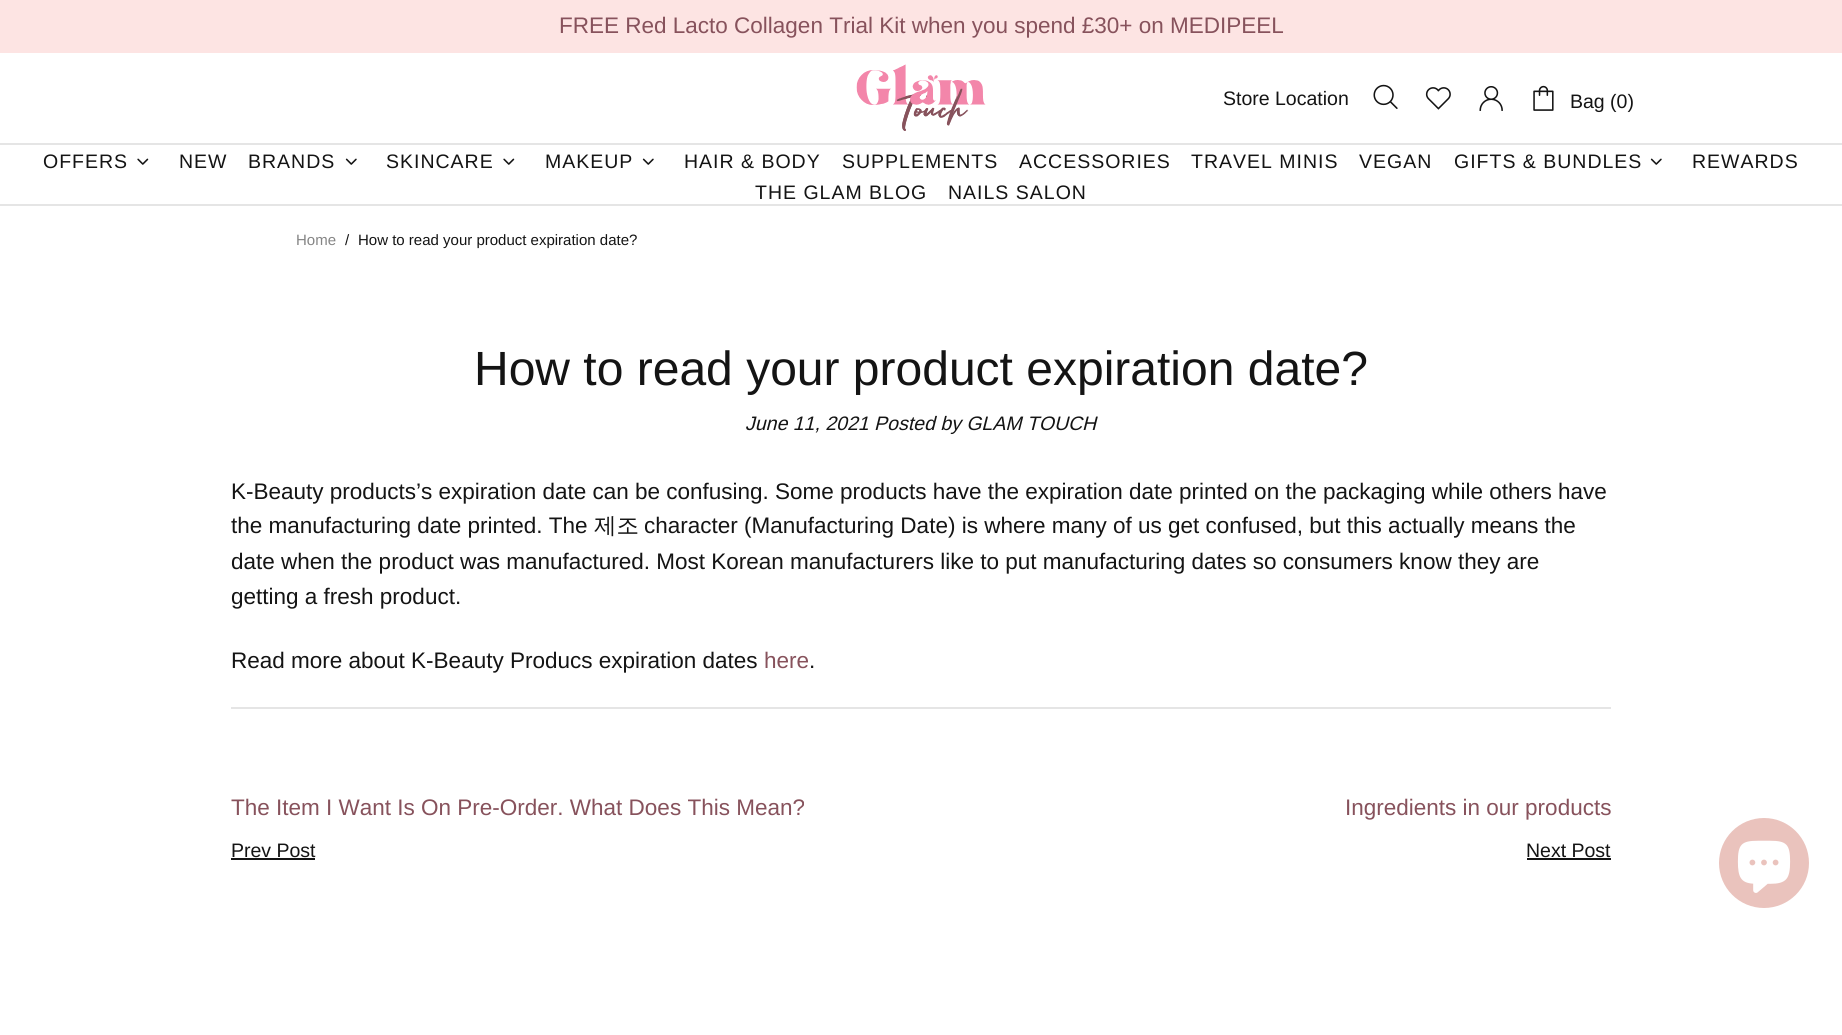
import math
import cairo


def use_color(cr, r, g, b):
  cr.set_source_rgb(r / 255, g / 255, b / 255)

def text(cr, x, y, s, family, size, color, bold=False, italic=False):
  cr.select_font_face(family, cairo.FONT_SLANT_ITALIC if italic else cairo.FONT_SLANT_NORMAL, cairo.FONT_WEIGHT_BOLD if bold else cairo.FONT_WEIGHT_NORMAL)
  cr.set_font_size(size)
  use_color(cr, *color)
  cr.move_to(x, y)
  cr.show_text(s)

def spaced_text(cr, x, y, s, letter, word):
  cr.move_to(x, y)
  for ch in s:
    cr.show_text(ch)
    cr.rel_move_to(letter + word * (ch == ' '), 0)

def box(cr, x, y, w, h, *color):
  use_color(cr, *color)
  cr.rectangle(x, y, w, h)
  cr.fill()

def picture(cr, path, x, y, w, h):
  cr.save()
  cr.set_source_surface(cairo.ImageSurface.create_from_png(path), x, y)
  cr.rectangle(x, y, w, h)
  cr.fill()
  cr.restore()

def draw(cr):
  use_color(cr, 255, 255, 255)
  cr.paint()
  box(cr, 0, 0, 1842, 53, 253, 228, 227)
  box(cr, 0, 143, 1842, 2, 229, 229, 229)
  picture(cr, "img_01.png", 856, 64, 130, 67)
  picture(cr, "img_02.png", 1373, 84, 25, 25)
  picture(cr, "img_03.png", 1425, 87, 26, 23)
  picture(cr, "img_04.png", 1479, 86, 24, 25)
  picture(cr, "img_05.png", 1533, 85, 21, 26)
  box(cr, 0, 204, 1842, 2, 229, 229, 229)
  picture(cr, "img_06.png", 137, 158, 12, 7)
  picture(cr, "img_07.png", 345, 158, 12, 7)
  picture(cr, "img_06.png", 503, 158, 12, 7)
  picture(cr, "img_07.png", 642, 158, 12, 7)
  picture(cr, "img_07.png", 1650, 158, 12, 7)
  box(cr, 231, 707, 1380, 2, 229, 229, 229)
  box(cr, 231, 858, 84, 2, 20, 20, 20)
  box(cr, 1527, 858, 84, 2, 20, 20, 20)
  use_color(cr, 234, 195, 189)
  cr.arc(1764, 863, 45, 0, 2 * math.pi)
  cr.fill()
  picture(cr, "img_08.png", 1737, 840, 54, 53)
  text(cr, 559, 33, "FREE Red Lacto Collagen Trial Kit when you spend £30+ on MEDIPEEL", "Arimo", 22.5, (135, 82, 92))
  text(cr, 1223, 105, "Store Location", "Arimo", 19.5, (20, 20, 20))
  text(cr, 1570, 108, "Bag (0)", "Arimo", 19.5, (20, 20, 20))
  spaced_text(cr, 43, 168, "OFFERS", 1, 0)
  spaced_text(cr, 179, 168, "NEW", 1, 0)
  spaced_text(cr, 248, 168, "BRANDS", 1, 0)
  spaced_text(cr, 386, 168, "SKINCARE", 1, 0)
  spaced_text(cr, 545, 168, "MAKEUP", 1, 0)
  spaced_text(cr, 684, 168, "HAIR & BODY", 1, 0)
  spaced_text(cr, 842, 168, "SUPPLEMENTS", 1, 0)
  spaced_text(cr, 1019, 168, "ACCESSORIES", 1, 0)
  spaced_text(cr, 1191, 168, "TRAVEL MINIS", 1, 0)
  spaced_text(cr, 1359, 168, "VEGAN", 1, 0)
  spaced_text(cr, 1454, 168, "GIFTS & BUNDLES", 1, 0)
  spaced_text(cr, 1692, 168, "REWARDS", 1, 0)
  spaced_text(cr, 755, 199, "THE GLAM BLOG", 1, 0)
  spaced_text(cr, 948, 199, "NAILS SALON", 1, 0)
  text(cr, 296, 245, "Home", "Arimo", 15, (133, 133, 133))
  text(cr, 345, 245, "/", "Arimo", 15, (20, 20, 20))
  text(cr, 358, 245, "How to read your product expiration date?", "Arimo", 15, (20, 20, 20))
  text(cr, 474, 385, "How to read your product expiration date?", "Arimo", 48, (20, 20, 20))
  text(cr, 745, 430, "June 11, 2021 Posted by GLAM TOUCH", "Arimo", 19.5, (20, 20, 20), italic=True)
  text(cr, 231, 499, "K-Beauty products’s expiration date can be confusing. Some products have the expiration date printed on the packaging while others have", "Arimo", 22.5, (20, 20, 20))
  text(cr, 231, 533, "the manufacturing date printed. The", "Arimo", 22.5, (20, 20, 20))
  text(cr, 594, 533, "제조", "WenQuanYi Zen Hei Medium", 22.5, (20, 20, 20))
  text(cr, 644, 533, "character (Manufacturing Date) is where many of us get confused, but this actually means the", "Arimo", 22.5, (20, 20, 20))
  text(cr, 231, 569, "date when the product was manufactured. Most Korean manufacturers like to put manufacturing dates so consumers know they are", "Arimo", 22.5, (20, 20, 20))
  text(cr, 231, 604, "getting a fresh product.", "Arimo", 22.5, (20, 20, 20))
  text(cr, 231, 668, "Read more about K-Beauty Producs expiration dates", "Arimo", 22.5, (20, 20, 20))
  text(cr, 764, 668, "here", "Arimo", 22.5, (135, 82, 92))
  text(cr, 809, 668, ".", "Arimo", 22.5, (20, 20, 20))
  text(cr, 231, 815, "The Item I Want Is On Pre-Order. What Does This Mean?", "Arimo", 22.5, (135, 82, 92))
  text(cr, 231, 857, "Prev Post", "Arimo", 19.5, (20, 20, 20))
  text(cr, 1345, 815, "Ingredients in our products", "Arimo", 22.5, (135, 82, 92))
  text(cr, 1526, 857, "Next Post", "Arimo", 19.5, (20, 20, 20))


surface = cairo.ImageSurface(cairo.FORMAT_RGB24, 1842, 1035)
cr = cairo.Context(surface)
options = cairo.FontOptions()
options.set_hint_metrics(cairo.HINT_METRICS_OFF)
options.set_hint_style(cairo.HINT_STYLE_NONE)
cr.set_font_options(options)
cr.set_miter_limit(4)
draw(cr)
surface.write_to_png("out.png")
